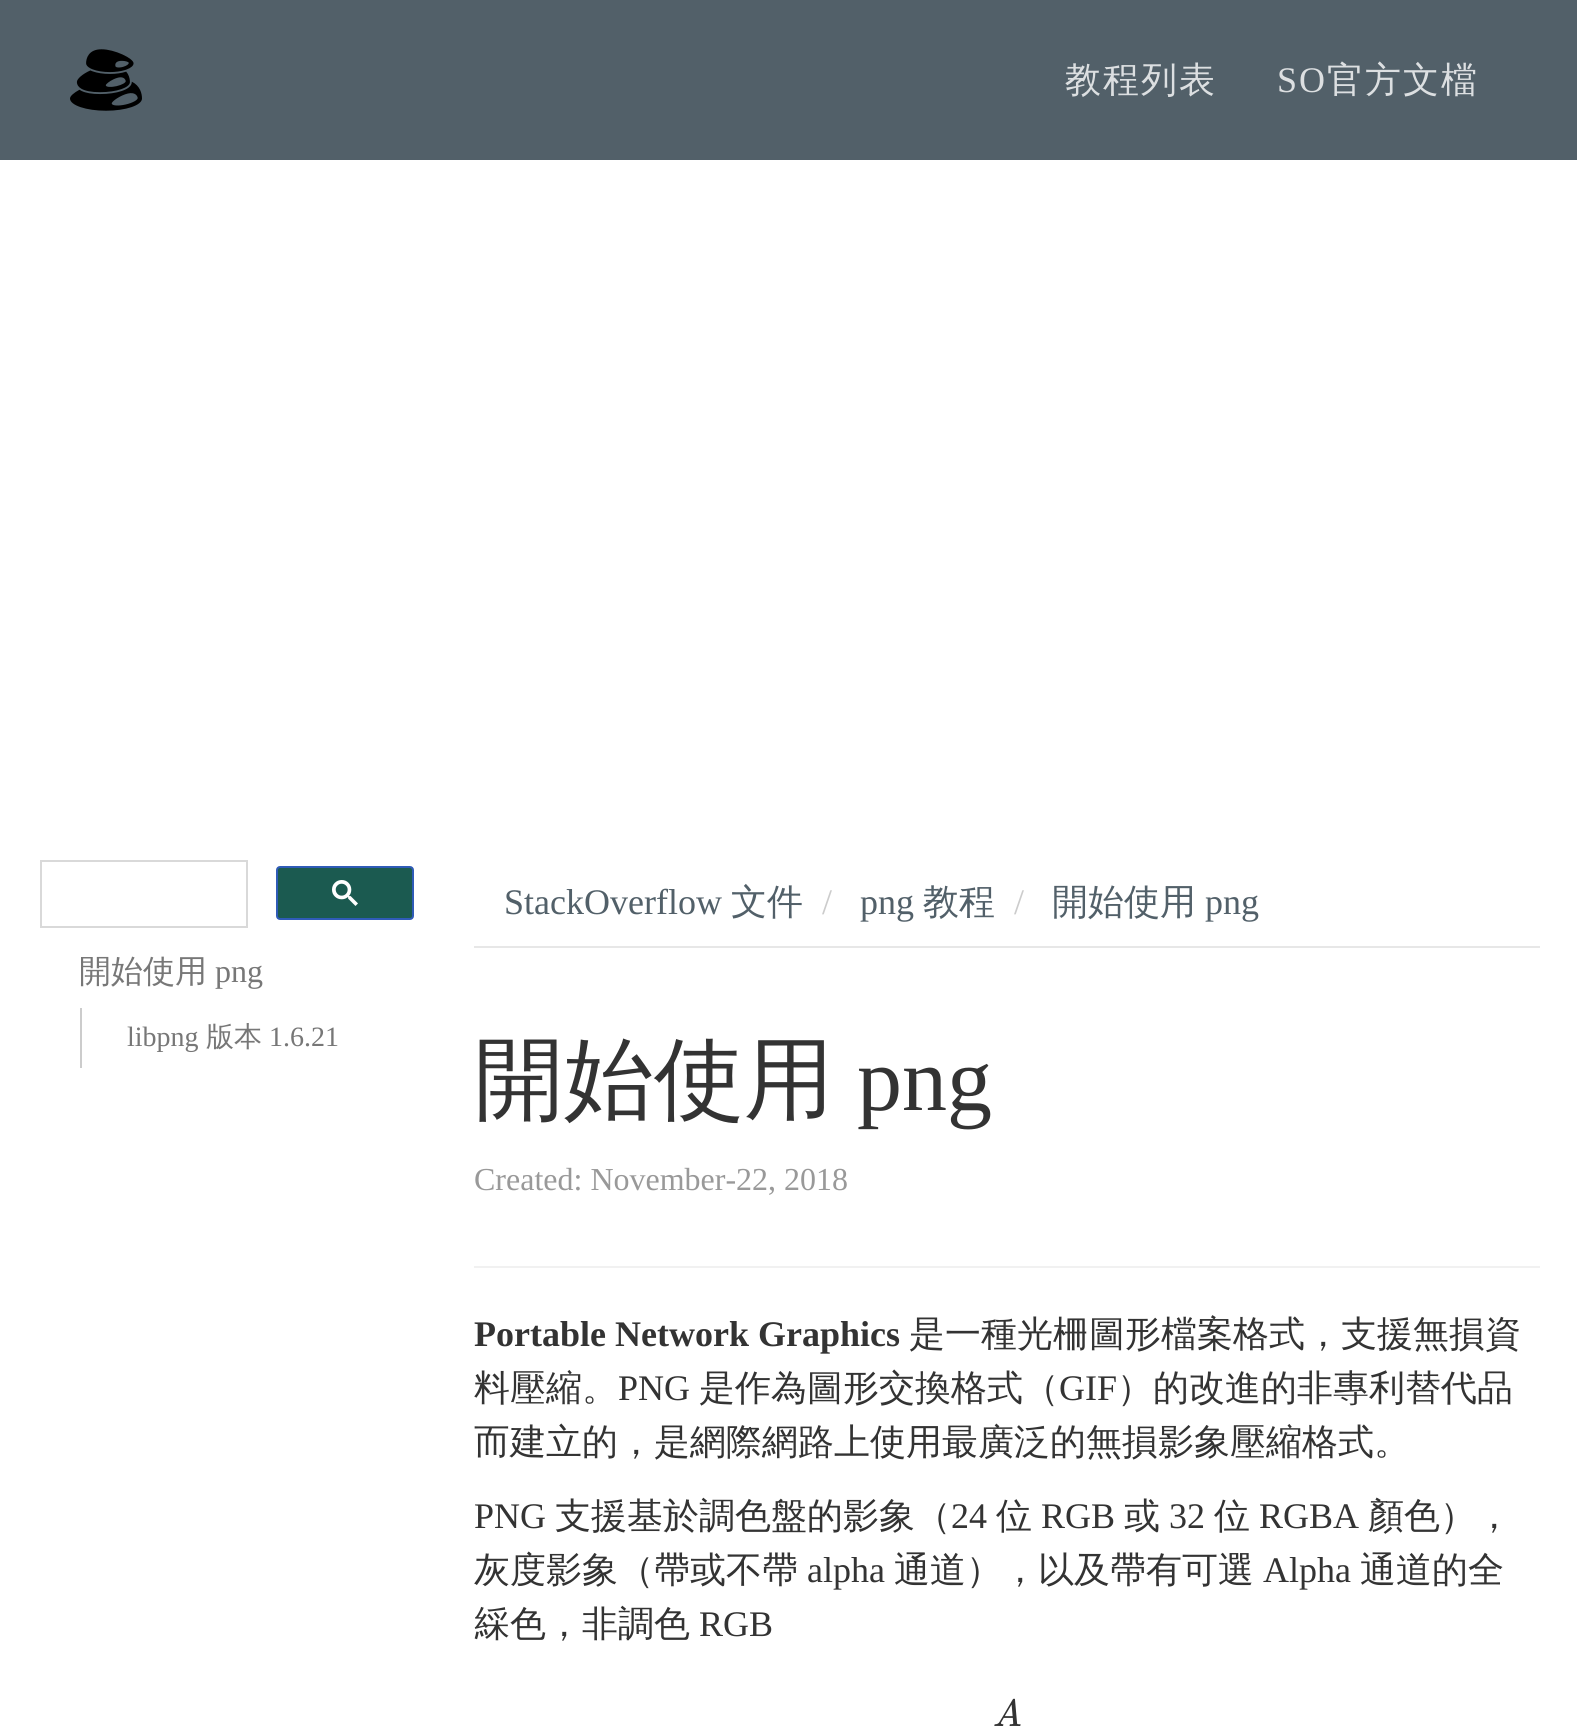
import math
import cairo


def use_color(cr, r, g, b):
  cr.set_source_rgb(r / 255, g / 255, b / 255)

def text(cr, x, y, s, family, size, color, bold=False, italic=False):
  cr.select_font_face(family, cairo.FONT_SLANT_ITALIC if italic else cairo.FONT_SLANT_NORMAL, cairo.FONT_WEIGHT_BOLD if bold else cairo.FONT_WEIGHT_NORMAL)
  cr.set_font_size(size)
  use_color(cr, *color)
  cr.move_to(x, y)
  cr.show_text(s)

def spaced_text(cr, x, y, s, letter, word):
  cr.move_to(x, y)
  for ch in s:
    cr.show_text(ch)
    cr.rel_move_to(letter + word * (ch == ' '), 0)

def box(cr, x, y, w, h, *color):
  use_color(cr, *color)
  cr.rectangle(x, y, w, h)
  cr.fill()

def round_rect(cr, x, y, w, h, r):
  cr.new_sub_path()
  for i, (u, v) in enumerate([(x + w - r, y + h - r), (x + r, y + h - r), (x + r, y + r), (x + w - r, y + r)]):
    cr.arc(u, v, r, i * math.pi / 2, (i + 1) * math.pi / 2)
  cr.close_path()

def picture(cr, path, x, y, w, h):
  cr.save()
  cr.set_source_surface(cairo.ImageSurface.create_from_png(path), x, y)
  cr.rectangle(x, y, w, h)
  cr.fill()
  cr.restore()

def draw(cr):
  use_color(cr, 255, 255, 255)
  cr.paint()
  box(cr, 0, 0, 1577, 160, 82, 96, 105)
  picture(cr, "img_01.png", 70, 49, 72, 62)
  cr.rectangle(41, 861, 206, 66)
  use_color(cr, 217, 217, 217)
  cr.stroke()
  use_color(cr, 27, 90, 80)
  round_rect(cr, 277, 867, 136, 52, 3)
  cr.fill_preserve()
  use_color(cr, 47, 91, 183)
  cr.stroke()
  picture(cr, "img_02.png", 332, 880, 26, 26)
  box(cr, 80, 1008, 2, 60, 204, 204, 204)
  box(cr, 474, 946, 1066, 2, 231, 231, 231)
  box(cr, 474, 1266, 1066, 2, 241, 241, 241)
  cr.select_font_face("WenQuanYi Zen Hei Medium")
  cr.set_font_size(36)
  use_color(cr, 220, 223, 225)
  spaced_text(cr, 1065, 92, "教程列表", 2, 0)
  cr.select_font_face("Liberation Serif")
  spaced_text(cr, 1277, 92, "SO", 2, 0)
  cr.select_font_face("WenQuanYi Zen Hei Medium")
  spaced_text(cr, 1327, 92, "官方文檔", 2, 0)
  text(cr, 79, 982, "開始使用", "WenQuanYi Zen Hei Medium", 32, (119, 119, 119))
  text(cr, 215, 982, "png", "Liberation Serif", 32, (119, 119, 119))
  text(cr, 127, 1046, "libpng", "Liberation Serif", 28, (119, 119, 119))
  text(cr, 206, 1046, "版本", "WenQuanYi Zen Hei Medium", 28, (119, 119, 119))
  text(cr, 269, 1046, "1.6.21", "Liberation Serif", 28, (119, 119, 119))
  text(cr, 504, 914, "StackOverflow", "Liberation Serif", 36, (82, 96, 105))
  text(cr, 731, 914, "文件", "WenQuanYi Zen Hei Medium", 36, (82, 96, 105))
  text(cr, 822, 914, "/", "Liberation Serif", 36, (204, 204, 204))
  text(cr, 860, 914, "png", "Liberation Serif", 36, (82, 96, 105))
  text(cr, 923, 914, "教程", "WenQuanYi Zen Hei Medium", 36, (82, 96, 105))
  text(cr, 1014, 914, "/", "Liberation Serif", 36, (204, 204, 204))
  text(cr, 1052, 914, "開始使用", "WenQuanYi Zen Hei Medium", 36, (82, 96, 105))
  text(cr, 1205, 914, "png", "Liberation Serif", 36, (82, 96, 105))
  text(cr, 474, 1110, "開始使用", "WenQuanYi Zen Hei Medium", 90, (51, 51, 51))
  text(cr, 857, 1110, "png", "Liberation Serif", 90, (51, 51, 51))
  text(cr, 474, 1190, "Created: November-22, 2018", "Liberation Serif", 32, (153, 153, 153))
  text(cr, 474, 1346, "Portable Network Graphics", "Liberation Serif", 36, (51, 51, 51), bold=True)
  text(cr, 909, 1346, "是一種光柵圖形檔案格式，支援無損資", "WenQuanYi Zen Hei Medium", 36, (51, 51, 51))
  text(cr, 474, 1400, "料壓縮。", "WenQuanYi Zen Hei Medium", 36, (51, 51, 51))
  text(cr, 618, 1400, "PNG", "Liberation Serif", 36, (51, 51, 51))
  text(cr, 699, 1400, "是作為圖形交換格式（", "WenQuanYi Zen Hei Medium", 36, (51, 51, 51))
  text(cr, 1059, 1400, "GIF", "Liberation Serif", 36, (51, 51, 51))
  text(cr, 1117, 1400, "）的改進的非專利替代品", "WenQuanYi Zen Hei Medium", 36, (51, 51, 51))
  text(cr, 474, 1454, "而建立的，是網際網路上使用最廣泛的無損影象壓縮格式。", "WenQuanYi Zen Hei Medium", 36, (51, 51, 51))
  text(cr, 474, 1528, "PNG", "Liberation Serif", 36, (51, 51, 51))
  text(cr, 555, 1528, "支援基於調色盤的影象（", "WenQuanYi Zen Hei Medium", 36, (51, 51, 51))
  text(cr, 951, 1528, "24", "Liberation Serif", 36, (51, 51, 51))
  text(cr, 996, 1528, "位", "WenQuanYi Zen Hei Medium", 36, (51, 51, 51))
  text(cr, 1041, 1528, "RGB", "Liberation Serif", 36, (51, 51, 51))
  text(cr, 1124, 1528, "或", "WenQuanYi Zen Hei Medium", 36, (51, 51, 51))
  text(cr, 1169, 1528, "32", "Liberation Serif", 36, (51, 51, 51))
  text(cr, 1214, 1528, "位", "WenQuanYi Zen Hei Medium", 36, (51, 51, 51))
  text(cr, 1259, 1528, "RGBA", "Liberation Serif", 36, (51, 51, 51))
  text(cr, 1368, 1528, "顏色），", "WenQuanYi Zen Hei Medium", 36, (51, 51, 51))
  text(cr, 474, 1582, "灰度影象（帶或不帶", "WenQuanYi Zen Hei Medium", 36, (51, 51, 51))
  text(cr, 807, 1582, "alpha", "Liberation Serif", 36, (51, 51, 51))
  text(cr, 894, 1582, "通道），以及帶有可選", "WenQuanYi Zen Hei Medium", 36, (51, 51, 51))
  text(cr, 1263, 1582, "Alpha", "Liberation Serif", 36, (51, 51, 51))
  text(cr, 1360, 1582, "通道的全", "WenQuanYi Zen Hei Medium", 36, (51, 51, 51))
  text(cr, 474, 1636, "綵色，非調色", "WenQuanYi Zen Hei Medium", 36, (51, 51, 51))
  text(cr, 699, 1636, "RGB", "Liberation Serif", 36, (51, 51, 51))
  text(cr, 993, 1726, "A", "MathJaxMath", 38, (51, 51, 51), italic=True)


surface = cairo.ImageSurface(cairo.FORMAT_RGB24, 1577, 1734)
cr = cairo.Context(surface)
options = cairo.FontOptions()
options.set_hint_metrics(cairo.HINT_METRICS_OFF)
options.set_hint_style(cairo.HINT_STYLE_NONE)
cr.set_font_options(options)
cr.set_miter_limit(4)
draw(cr)
surface.write_to_png("out.png")
